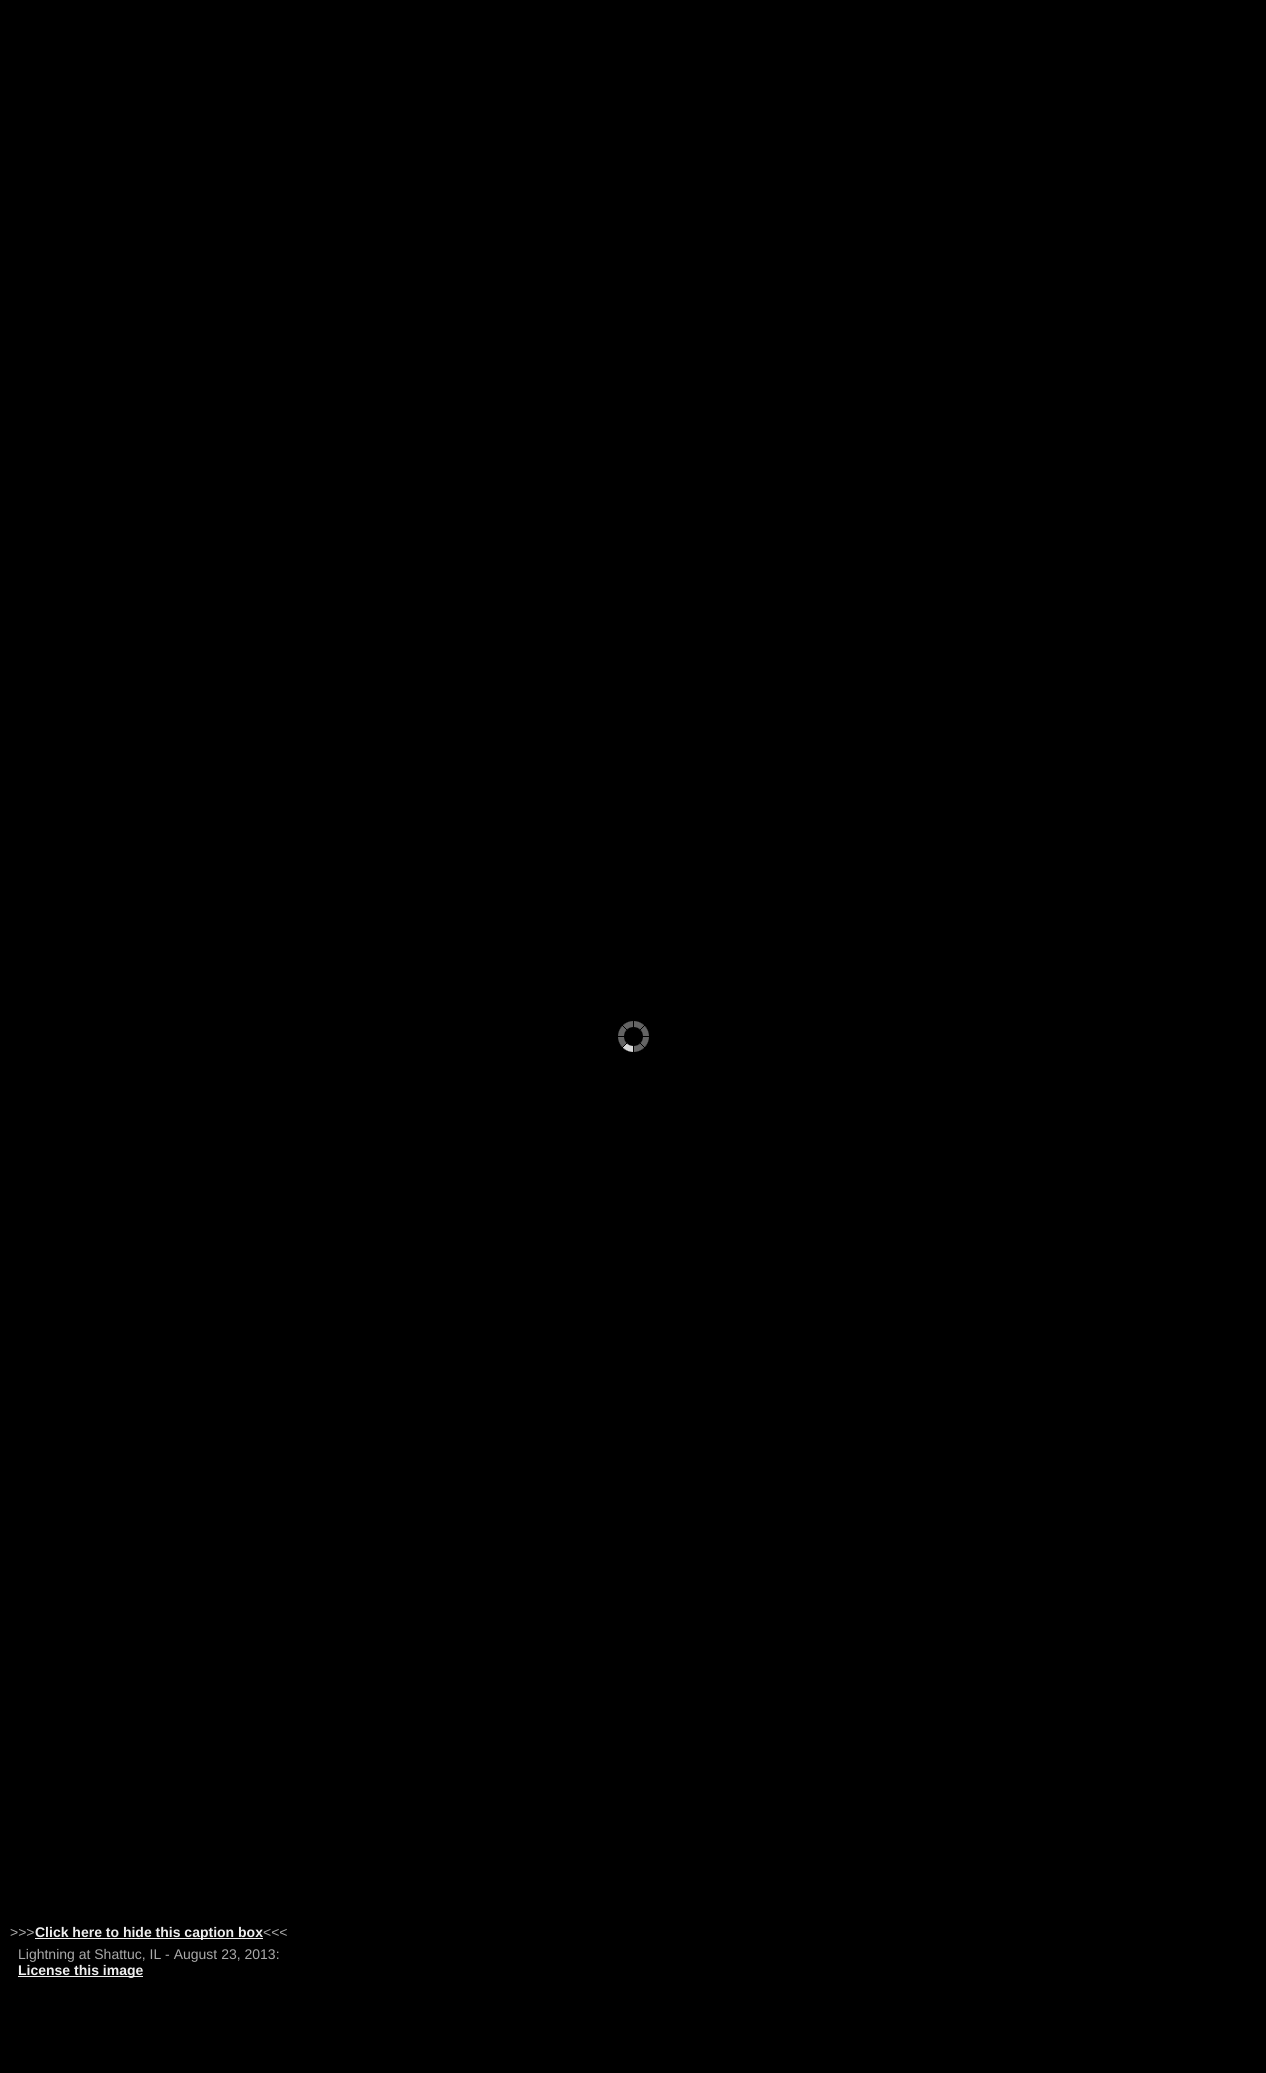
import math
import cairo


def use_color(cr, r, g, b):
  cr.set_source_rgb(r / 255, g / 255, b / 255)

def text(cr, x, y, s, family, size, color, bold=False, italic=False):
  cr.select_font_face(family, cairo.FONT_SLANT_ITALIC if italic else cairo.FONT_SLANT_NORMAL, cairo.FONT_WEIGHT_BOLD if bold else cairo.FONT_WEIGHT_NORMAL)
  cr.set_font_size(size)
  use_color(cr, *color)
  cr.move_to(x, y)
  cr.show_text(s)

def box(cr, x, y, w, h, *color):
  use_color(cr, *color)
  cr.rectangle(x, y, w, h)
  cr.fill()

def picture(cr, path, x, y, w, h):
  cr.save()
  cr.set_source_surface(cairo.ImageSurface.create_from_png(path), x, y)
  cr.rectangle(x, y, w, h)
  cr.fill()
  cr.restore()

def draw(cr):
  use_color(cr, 0, 0, 0)
  cr.paint()
  picture(cr, "img_01.png", 618, 1021, 31, 31)
  box(cr, 35, 1938, 228, 1, 238, 238, 238)
  box(cr, 18, 1976, 125, 1, 238, 238, 238)
  text(cr, 10, 1937, ">>>", "Liberation Sans", 14, (170, 170, 170))
  text(cr, 35, 1937, "Click here to hide this caption box", "Liberation Sans", 14, (238, 238, 238), bold=True)
  text(cr, 263, 1937, "<<<", "Liberation Sans", 14, (170, 170, 170))
  text(cr, 18, 1959, "Lightning at Shattuc, IL - August 23, 2013:", "Liberation Sans", 14, (170, 170, 170))
  text(cr, 18, 1975, "License this image", "Liberation Sans", 14, (238, 238, 238), bold=True)


surface = cairo.ImageSurface(cairo.FORMAT_RGB24, 1266, 2073)
cr = cairo.Context(surface)
options = cairo.FontOptions()
options.set_hint_metrics(cairo.HINT_METRICS_OFF)
options.set_hint_style(cairo.HINT_STYLE_NONE)
cr.set_font_options(options)
cr.set_miter_limit(4)
draw(cr)
surface.write_to_png("out.png")
